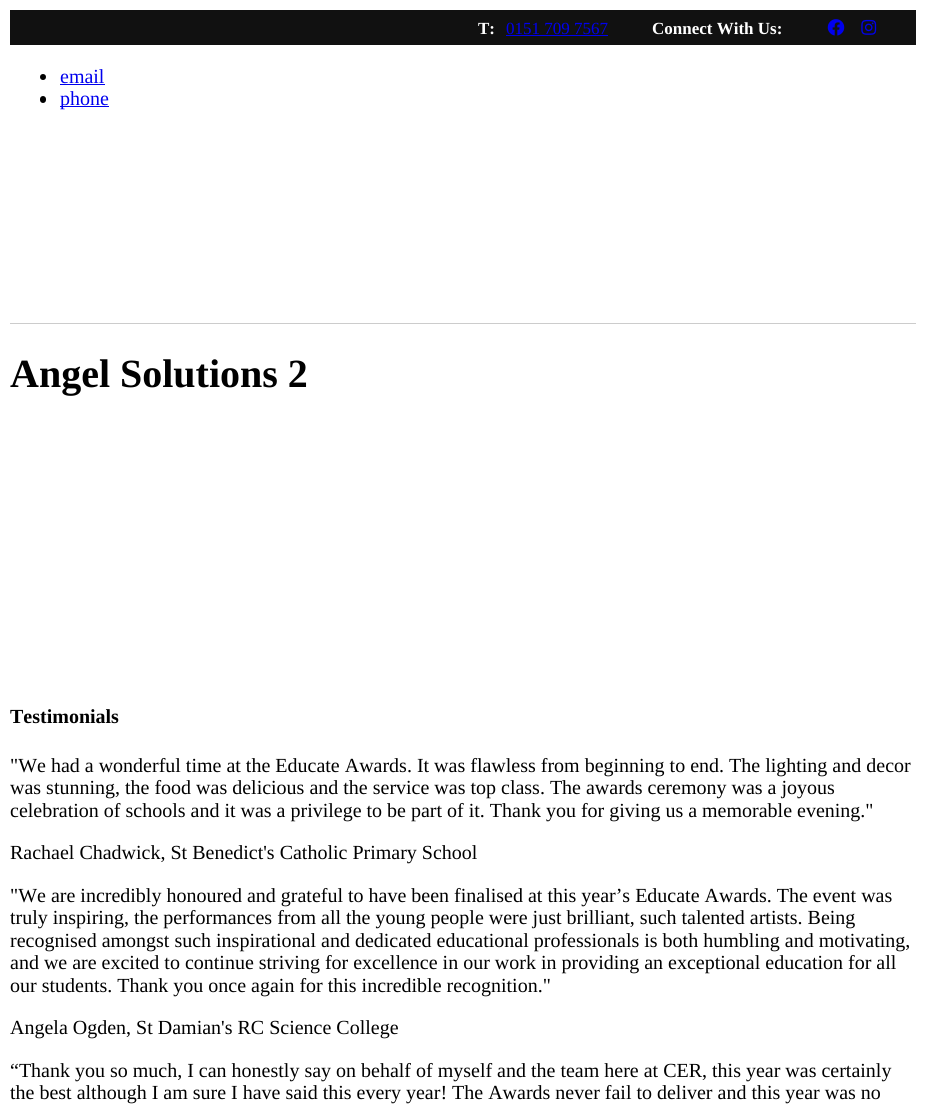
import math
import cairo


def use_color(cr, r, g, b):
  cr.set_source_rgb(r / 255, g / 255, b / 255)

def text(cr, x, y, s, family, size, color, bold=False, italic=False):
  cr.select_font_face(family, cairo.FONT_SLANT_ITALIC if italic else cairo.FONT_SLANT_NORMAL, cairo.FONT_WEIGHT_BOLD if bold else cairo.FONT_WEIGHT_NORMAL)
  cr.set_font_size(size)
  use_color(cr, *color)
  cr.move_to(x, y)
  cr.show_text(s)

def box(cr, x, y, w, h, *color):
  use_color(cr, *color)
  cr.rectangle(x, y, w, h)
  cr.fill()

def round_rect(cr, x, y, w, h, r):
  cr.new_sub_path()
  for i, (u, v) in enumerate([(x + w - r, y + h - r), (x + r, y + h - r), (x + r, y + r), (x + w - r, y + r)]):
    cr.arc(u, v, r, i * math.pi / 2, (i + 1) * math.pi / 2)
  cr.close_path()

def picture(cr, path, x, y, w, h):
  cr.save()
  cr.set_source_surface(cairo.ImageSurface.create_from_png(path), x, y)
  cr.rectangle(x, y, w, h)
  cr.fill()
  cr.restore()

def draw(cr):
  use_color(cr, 255, 255, 255)
  cr.paint()
  box(cr, 10, 10, 906, 35, 17, 17, 17)
  box(cr, 506, 35, 102, 1, 0, 0, 238)
  picture(cr, "img_01.png", 827, 19, 18, 17)
  picture(cr, "img_02.png", 861, 19, 16, 16)
  box(cr, 10, 323, 906, 1, 204, 204, 204)
  use_color(cr, 0, 0, 0)
  cr.arc(43, 77, 3, 0, 2 * math.pi)
  cr.fill()
  box(cr, 60, 84, 45, 1, 0, 0, 238)
  use_color(cr, 0, 0, 0)
  round_rect(cr, 40, 96, 6, 7, 3)
  cr.fill()
  box(cr, 60, 106, 49, 1, 0, 0, 238)
  text(cr, 478, 34, "T:", "Liberation Serif", 17, (255, 255, 255), bold=True)
  text(cr, 506, 34, "0151 709 7567", "Liberation Serif", 17, (0, 0, 238))
  text(cr, 652, 34, "Connect With Us:", "Liberation Serif", 17, (255, 255, 255), bold=True)
  text(cr, 60, 83, "email", "Liberation Serif", 20, (0, 0, 238))
  text(cr, 60, 105, "phone", "Liberation Serif", 20, (0, 0, 238))
  text(cr, 10, 387, "Angel Solutions 2", "Liberation Serif", 40, (0, 0, 0), bold=True)
  text(cr, 10, 723, "Testimonials", "Liberation Serif", 20, (0, 0, 0), bold=True)
  text(cr, 10, 772, "\"We had a wonderful time at the Educate Awards. It was flawless from beginning to end. The lighting and decor", "Liberation Serif", 20, (0, 0, 0))
  text(cr, 10, 794, "was stunning, the food was delicious and the service was top class. The awards ceremony was a joyous", "Liberation Serif", 20, (0, 0, 0))
  text(cr, 10, 817, "celebration of schools and it was a privilege to be part of it. Thank you for giving us a memorable evening.\"", "Liberation Serif", 20, (0, 0, 0))
  text(cr, 10, 859, "Rachael Chadwick, St Benedict's Catholic Primary School", "Liberation Serif", 20, (0, 0, 0))
  text(cr, 10, 902, "\"We are incredibly honoured and grateful to have been finalised at this year’s Educate Awards. The event was", "Liberation Serif", 20, (0, 0, 0))
  text(cr, 10, 924, "truly inspiring, the performances from all the young people were just brilliant, such talented artists. Being", "Liberation Serif", 20, (0, 0, 0))
  text(cr, 10, 947, "recognised amongst such inspirational and dedicated educational professionals is both humbling and motivating,", "Liberation Serif", 20, (0, 0, 0))
  text(cr, 10, 969, "and we are excited to continue striving for excellence in our work in providing an exceptional education for all", "Liberation Serif", 20, (0, 0, 0))
  text(cr, 10, 992, "our students. Thank you once again for this incredible recognition.\"", "Liberation Serif", 20, (0, 0, 0))
  text(cr, 10, 1034, "Angela Ogden, St Damian's RC Science College", "Liberation Serif", 20, (0, 0, 0))
  text(cr, 10, 1077, "“Thank you so much, I can honestly say on behalf of myself and the team here at CER, this year was certainly", "Liberation Serif", 20, (0, 0, 0))
  text(cr, 10, 1099, "the best although I am sure I have said this every year! The Awards never fail to deliver and this year was no", "Liberation Serif", 20, (0, 0, 0))


surface = cairo.ImageSurface(cairo.FORMAT_RGB24, 926, 1118)
cr = cairo.Context(surface)
options = cairo.FontOptions()
options.set_hint_metrics(cairo.HINT_METRICS_OFF)
options.set_hint_style(cairo.HINT_STYLE_NONE)
cr.set_font_options(options)
cr.set_miter_limit(4)
draw(cr)
surface.write_to_png("out.png")
